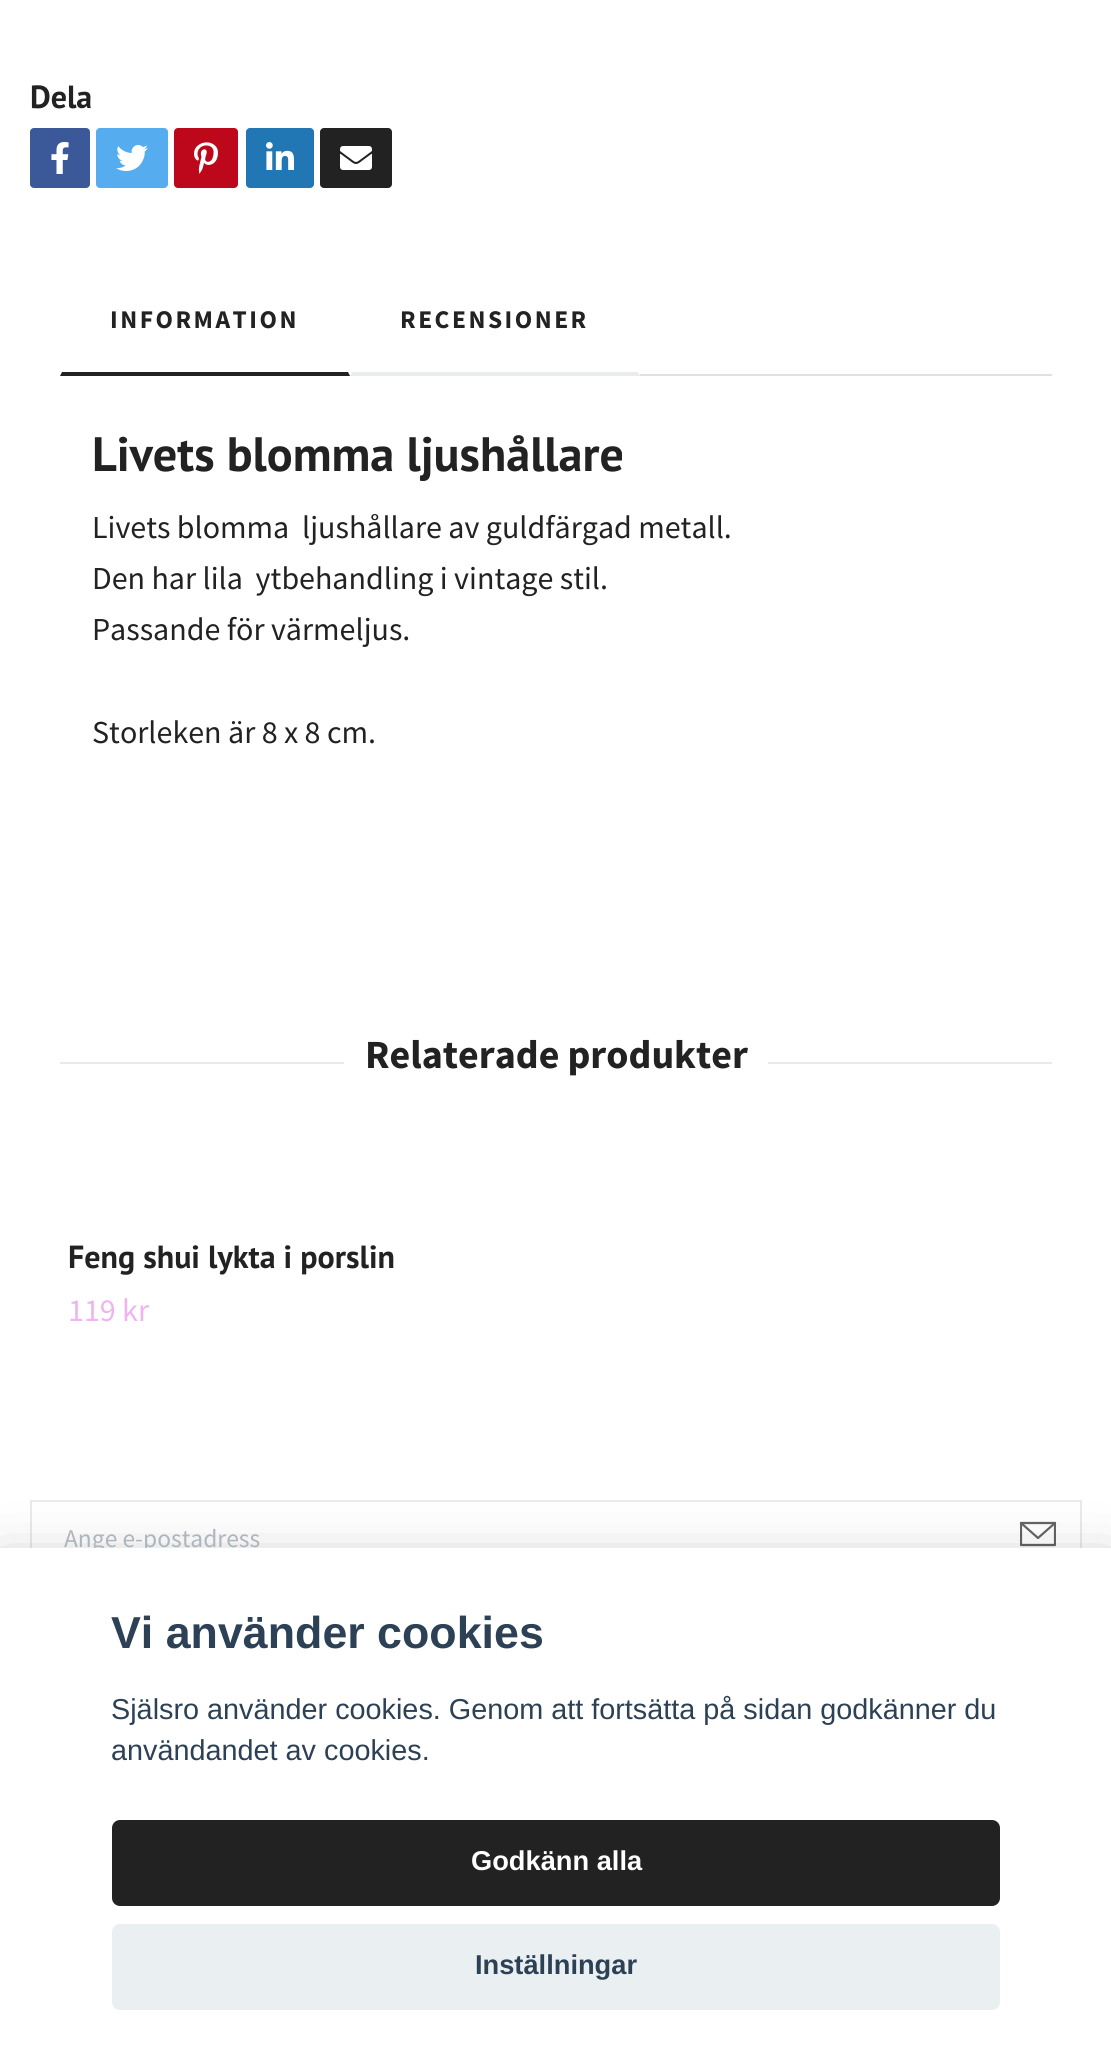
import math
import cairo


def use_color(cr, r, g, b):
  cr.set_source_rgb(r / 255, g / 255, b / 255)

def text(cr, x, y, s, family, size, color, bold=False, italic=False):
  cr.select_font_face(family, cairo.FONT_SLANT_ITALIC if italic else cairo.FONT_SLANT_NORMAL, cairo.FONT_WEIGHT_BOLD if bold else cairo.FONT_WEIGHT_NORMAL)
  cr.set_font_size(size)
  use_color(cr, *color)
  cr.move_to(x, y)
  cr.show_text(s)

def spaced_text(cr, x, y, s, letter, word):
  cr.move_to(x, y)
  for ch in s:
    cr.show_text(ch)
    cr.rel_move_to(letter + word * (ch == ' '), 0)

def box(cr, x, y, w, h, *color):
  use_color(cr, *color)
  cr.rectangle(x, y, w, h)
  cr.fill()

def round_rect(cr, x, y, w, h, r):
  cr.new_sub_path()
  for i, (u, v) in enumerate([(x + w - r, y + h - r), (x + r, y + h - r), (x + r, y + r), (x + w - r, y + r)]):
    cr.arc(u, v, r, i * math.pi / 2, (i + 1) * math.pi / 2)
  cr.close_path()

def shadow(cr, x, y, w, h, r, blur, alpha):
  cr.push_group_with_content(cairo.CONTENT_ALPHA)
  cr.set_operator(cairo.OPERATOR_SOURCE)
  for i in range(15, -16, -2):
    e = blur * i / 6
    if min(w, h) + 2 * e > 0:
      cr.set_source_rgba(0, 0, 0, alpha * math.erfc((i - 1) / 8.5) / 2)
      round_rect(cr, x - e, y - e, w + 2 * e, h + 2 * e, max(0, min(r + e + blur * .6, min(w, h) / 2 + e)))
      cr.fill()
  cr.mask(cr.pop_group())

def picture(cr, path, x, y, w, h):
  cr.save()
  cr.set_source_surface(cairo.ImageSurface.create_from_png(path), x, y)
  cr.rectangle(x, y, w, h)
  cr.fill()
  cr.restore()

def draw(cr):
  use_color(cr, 255, 255, 255)
  cr.paint()
  use_color(cr, 59, 89, 152)
  round_rect(cr, 30, 128, 60, 60, 4)
  cr.fill()
  picture(cr, "img_01.png", 51, 142, 18, 32)
  use_color(cr, 85, 172, 238)
  round_rect(cr, 96, 128, 72, 60, 4)
  cr.fill()
  picture(cr, "img_02.png", 116, 145, 32, 26)
  use_color(cr, 189, 8, 28)
  round_rect(cr, 174, 128, 64, 60, 4)
  cr.fill()
  picture(cr, "img_03.png", 194, 142, 24, 32)
  use_color(cr, 33, 119, 180)
  round_rect(cr, 246, 128, 68, 60, 4)
  cr.fill()
  picture(cr, "img_04.png", 266, 142, 28, 28)
  use_color(cr, 34, 34, 34)
  round_rect(cr, 320, 128, 72, 60, 4)
  cr.fill()
  picture(cr, "img_05.png", 340, 146, 32, 24)
  box(cr, 350, 374, 702, 2, 222, 226, 230)
  use_color(cr, 34, 34, 34)
  cr.new_path()
  cr.move_to(350, 376)
  cr.line_to(60, 376)
  cr.line_to(62, 372)
  cr.line_to(348, 372)
  cr.close_path()
  cr.fill()
  use_color(cr, 255, 255, 255)
  cr.new_path()
  cr.move_to(640, 264)
  cr.line_to(640, 376)
  cr.line_to(638, 372)
  cr.line_to(638, 266)
  cr.close_path()
  cr.fill()
  use_color(cr, 233, 236, 239)
  cr.new_path()
  cr.move_to(640, 376)
  cr.line_to(350, 376)
  cr.line_to(352, 372)
  cr.line_to(638, 372)
  cr.close_path()
  cr.fill()
  use_color(cr, 255, 255, 255)
  cr.new_path()
  cr.move_to(350, 376)
  cr.line_to(350, 264)
  cr.line_to(352, 266)
  cr.line_to(352, 372)
  cr.close_path()
  cr.fill()
  box(cr, 60, 1062, 992, 2, 233, 233, 233)
  box(cr, 344, 1062, 424, 2, 255, 255, 255)
  cr.rectangle(31, 1501, 1050, 72)
  use_color(cr, 233, 233, 233)
  cr.stroke()
  cr.new_path()
  cr.move_to(1021, 1523)
  cr.line_to(1038, 1538)
  cr.line_to(1055, 1523)
  use_color(cr, 100, 100, 100)
  cr.set_line_width(2.2)
  cr.set_line_cap(cairo.LINE_CAP_ROUND)
  cr.set_line_join(cairo.LINE_JOIN_ROUND)
  cr.stroke()
  cr.save()
  cr.rectangle(1020, 1516, 36, 36)
  cr.clip()
  cr.new_path()
  cr.move_to(1021, 1523)
  cr.line_to(1055, 1523)
  cr.line_to(1055, 1545)
  cr.line_to(1021, 1545)
  cr.close_path()
  cr.stroke()
  cr.restore()
  use_color(cr, 2, 2, 3)
  shadow(cr, 0, 1568, 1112, 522, 0, 30, 0.28)
  text(cr, 30, 108, "Dela", "PT Sans", 32, (34, 34, 34), bold=True)
  cr.select_font_face("Source Sans Pro", cairo.FONT_SLANT_NORMAL, cairo.FONT_WEIGHT_BOLD)
  cr.set_font_size(25.5)
  spaced_text(cr, 110, 328, "INFORMATION", 2.5, 0)
  spaced_text(cr, 400, 328, "RECENSIONER", 2.5, 0)
  text(cr, 92, 471, "Livets blomma ljushållare", "PT Sans", 48.25, (34, 34, 34), bold=True)
  text(cr, 92, 538, "Livets blomma  ljushållare av guldfärgad metall.", "Source Sans Pro", 32, (34, 34, 34))
  text(cr, 92, 589, "Den har lila  ytbehandling i vintage stil.", "Source Sans Pro", 32, (34, 34, 34))
  text(cr, 92, 640, "Passande för värmeljus.", "Source Sans Pro", 32, (34, 34, 34))
  text(cr, 92, 743, "Storleken är 8 x 8 cm.", "Source Sans Pro", 32, (34, 34, 34))
  text(cr, 365, 1068, "Relaterade produkter", "Source Sans Pro", 40, (34, 34, 34), bold=True)
  text(cr, 68, 1268, "Feng shui lykta i porslin", "PT Sans", 32, (34, 34, 34), bold=True)
  text(cr, 68, 1321, "119 kr", "Source Sans Pro", 32, (237, 180, 241))
  text(cr, 64, 1547, "Ange e-postadress", "Source Sans Pro", 25.5, (173, 181, 189))
  box(cr, 0, 1548, 1111, 521, 255, 255, 255)
  text(cr, 111, 1648, "Vi använder cookies", "Liberation Sans", 44.75, (45, 65, 86), bold=True)
  text(cr, 111, 1719, "Själsro använder cookies. Genom att fortsätta på sidan godkänner du", "Liberation Sans", 28.8, (45, 65, 86))
  text(cr, 111, 1760, "användandet av cookies.", "Liberation Sans", 28.8, (45, 65, 86))
  use_color(cr, 34, 34, 34)
  round_rect(cr, 112, 1820, 888, 86, 8)
  cr.fill()
  text(cr, 471, 1870, "Godkänn alla", "Liberation Sans", 27.25, (255, 255, 255), bold=True)
  use_color(cr, 234, 239, 242)
  round_rect(cr, 112, 1924, 888, 86, 8)
  cr.fill()
  text(cr, 475, 1974, "Inställningar", "Liberation Sans", 27.25, (45, 65, 86), bold=True)


surface = cairo.ImageSurface(cairo.FORMAT_RGB24, 1111, 2069)
cr = cairo.Context(surface)
options = cairo.FontOptions()
options.set_hint_metrics(cairo.HINT_METRICS_OFF)
options.set_hint_style(cairo.HINT_STYLE_NONE)
cr.set_font_options(options)
cr.set_miter_limit(4)
draw(cr)
surface.write_to_png("out.png")
